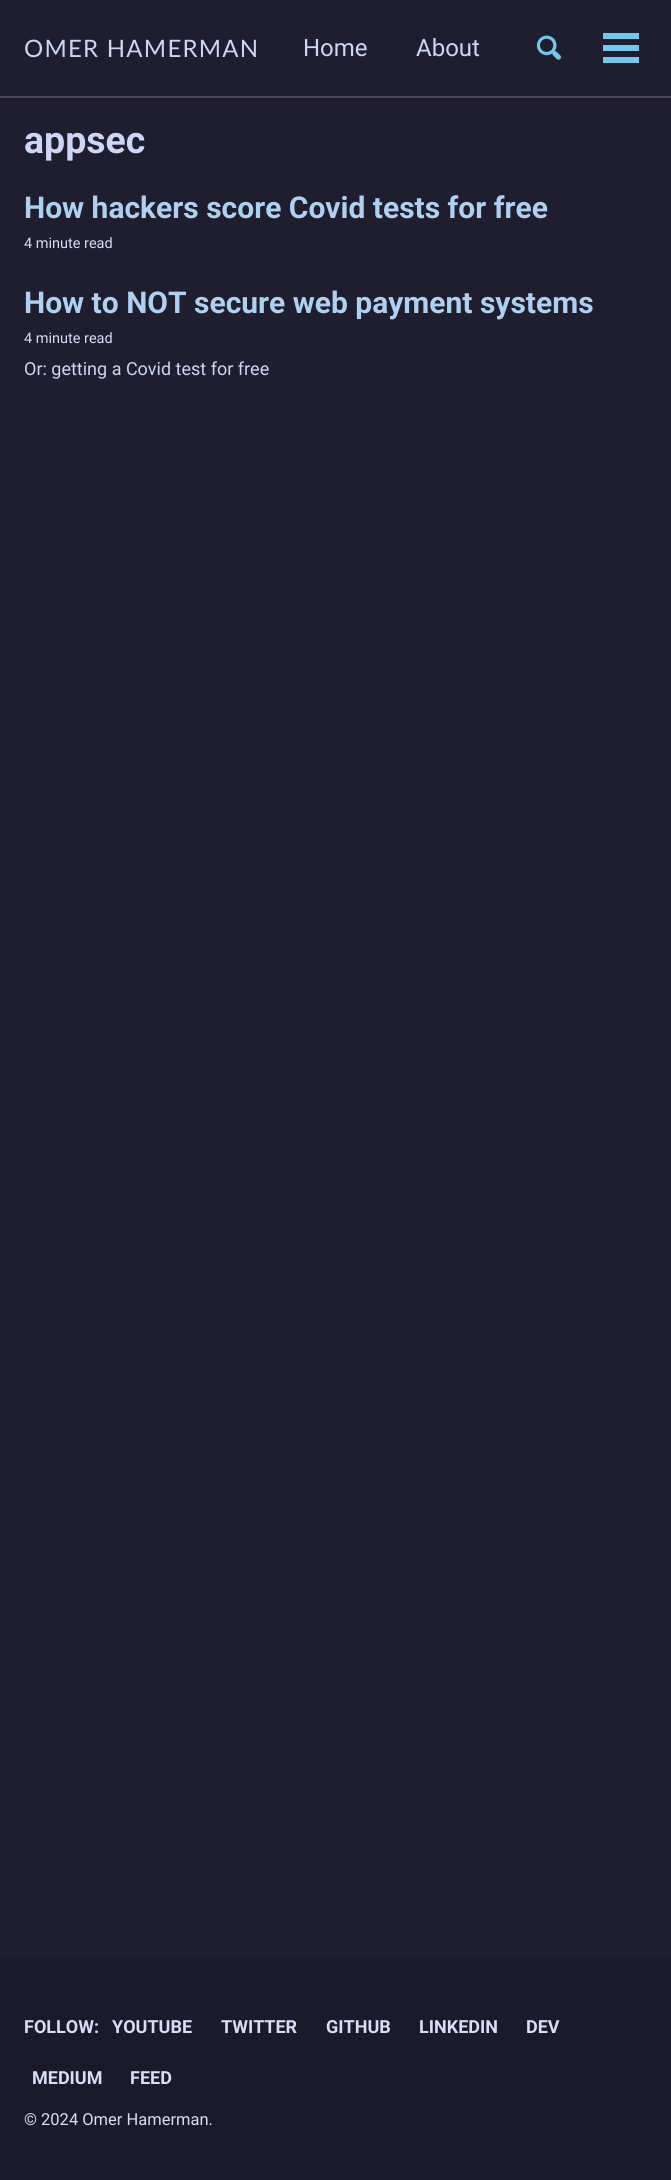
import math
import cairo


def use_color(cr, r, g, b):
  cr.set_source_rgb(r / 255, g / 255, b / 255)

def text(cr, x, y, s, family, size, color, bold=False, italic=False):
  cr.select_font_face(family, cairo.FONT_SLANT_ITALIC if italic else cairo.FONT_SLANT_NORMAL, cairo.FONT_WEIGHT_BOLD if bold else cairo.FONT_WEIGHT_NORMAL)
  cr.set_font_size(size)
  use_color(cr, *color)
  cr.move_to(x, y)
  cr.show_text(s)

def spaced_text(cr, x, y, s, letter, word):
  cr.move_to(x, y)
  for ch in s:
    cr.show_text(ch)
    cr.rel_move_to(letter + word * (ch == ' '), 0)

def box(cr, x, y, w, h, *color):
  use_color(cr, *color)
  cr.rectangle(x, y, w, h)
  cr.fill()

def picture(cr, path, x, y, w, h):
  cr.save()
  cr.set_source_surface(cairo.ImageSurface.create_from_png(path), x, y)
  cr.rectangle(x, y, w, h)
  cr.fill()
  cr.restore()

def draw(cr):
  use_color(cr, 30, 30, 46)
  cr.paint()
  box(cr, 0, 96, 671, 2, 73, 69, 81)
  picture(cr, "img_01.png", 537, 35, 24, 25)
  box(cr, 603, 45, 36, 6, 116, 199, 236)
  box(cr, 603, 33, 36, 6, 116, 199, 236)
  box(cr, 603, 57, 36, 6, 116, 199, 236)
  box(cr, 0, 1959, 671, 221, 26, 26, 40)
  cr.select_font_face("Lato")
  cr.set_font_size(24)
  use_color(cr, 205, 214, 244)
  spaced_text(cr, 24, 57, "OMER HAMERMAN", 1.25, 0)
  text(cr, 303, 56, "Home", "Roboto", 24, (205, 214, 244))
  text(cr, 416, 56, "About", "Roboto", 24, (205, 214, 244))
  text(cr, 24, 153, "appsec", "Roboto", 37.5, (205, 214, 244), bold=True)
  text(cr, 24, 218, "How hackers score Covid tests for free", "Roboto", 30, (174, 209, 241), bold=True)
  text(cr, 24, 248, "4 minute read", "Roboto", 14.5, (215, 222, 246))
  text(cr, 24, 313, "How to NOT secure web payment systems", "Roboto", 30, (174, 209, 241), bold=True)
  text(cr, 24, 343, "4 minute read", "Roboto", 14.5, (215, 222, 246))
  text(cr, 24, 375, "Or: getting a Covid test for free", "Roboto", 18, (205, 214, 244))
  text(cr, 24, 2033, "FOLLOW:", "Roboto", 18, (215, 222, 246), bold=True)
  text(cr, 112, 2033, "YOUTUBE", "Roboto", 18, (215, 222, 246), bold=True)
  text(cr, 221, 2033, "TWITTER", "Roboto", 18, (215, 222, 246), bold=True)
  text(cr, 326, 2033, "GITHUB", "Roboto", 18, (215, 222, 246), bold=True)
  text(cr, 419, 2033, "LINKEDIN", "Roboto", 18, (215, 222, 246), bold=True)
  text(cr, 526, 2033, "DEV", "Roboto", 18, (215, 222, 246), bold=True)
  text(cr, 32, 2084, "MEDIUM", "Roboto", 18, (215, 222, 246), bold=True)
  text(cr, 130, 2084, "FEED", "Roboto", 18, (215, 222, 246), bold=True)
  text(cr, 24, 2125, "© 2024 Omer Hamerman.", "Roboto", 16.5, (215, 222, 246))


surface = cairo.ImageSurface(cairo.FORMAT_RGB24, 671, 2180)
cr = cairo.Context(surface)
options = cairo.FontOptions()
options.set_hint_metrics(cairo.HINT_METRICS_OFF)
options.set_hint_style(cairo.HINT_STYLE_NONE)
cr.set_font_options(options)
cr.set_miter_limit(4)
draw(cr)
surface.write_to_png("out.png")
